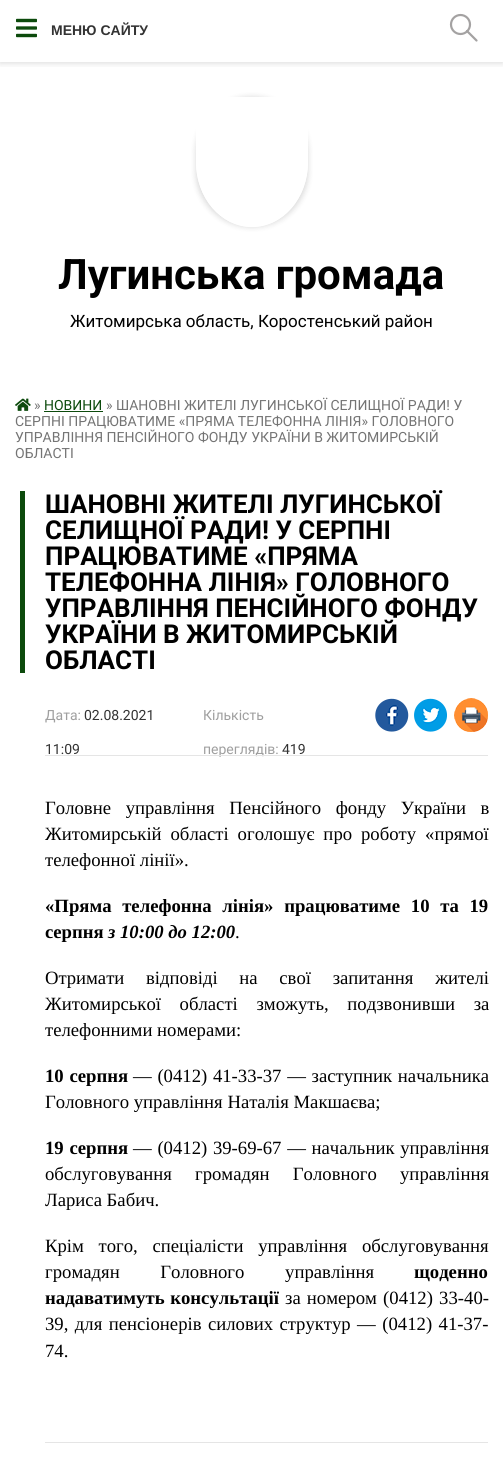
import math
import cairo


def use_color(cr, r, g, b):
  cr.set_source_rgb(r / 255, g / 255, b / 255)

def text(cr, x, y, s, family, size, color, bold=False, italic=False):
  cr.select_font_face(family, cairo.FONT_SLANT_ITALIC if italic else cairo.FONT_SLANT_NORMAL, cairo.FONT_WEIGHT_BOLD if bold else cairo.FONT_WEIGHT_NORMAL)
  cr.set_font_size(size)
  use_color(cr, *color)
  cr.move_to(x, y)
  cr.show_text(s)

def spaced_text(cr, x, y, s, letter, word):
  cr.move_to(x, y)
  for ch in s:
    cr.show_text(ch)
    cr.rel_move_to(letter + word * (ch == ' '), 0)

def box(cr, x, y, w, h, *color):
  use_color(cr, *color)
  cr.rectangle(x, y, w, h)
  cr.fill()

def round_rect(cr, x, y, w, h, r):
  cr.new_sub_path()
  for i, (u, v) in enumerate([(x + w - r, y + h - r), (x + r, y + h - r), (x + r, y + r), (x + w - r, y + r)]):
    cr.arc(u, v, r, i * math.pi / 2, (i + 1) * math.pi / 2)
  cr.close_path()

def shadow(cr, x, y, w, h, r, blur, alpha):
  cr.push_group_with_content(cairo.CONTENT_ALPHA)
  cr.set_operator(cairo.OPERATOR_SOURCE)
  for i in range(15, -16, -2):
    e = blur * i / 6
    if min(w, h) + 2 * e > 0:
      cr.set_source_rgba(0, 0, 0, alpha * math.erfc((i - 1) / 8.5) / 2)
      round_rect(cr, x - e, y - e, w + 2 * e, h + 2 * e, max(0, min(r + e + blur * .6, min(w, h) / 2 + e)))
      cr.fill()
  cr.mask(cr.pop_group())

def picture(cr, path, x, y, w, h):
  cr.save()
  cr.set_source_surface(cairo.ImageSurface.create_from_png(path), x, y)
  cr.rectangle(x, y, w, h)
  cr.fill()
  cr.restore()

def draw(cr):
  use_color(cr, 255, 255, 255)
  cr.paint()
  cr.save()
  cr.rectangle(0, 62, 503, 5)
  cr.clip()
  use_color(cr, 0, 0, 0)
  shadow(cr, 0, 1, 503, 62, 0, 3.5, 0.15)
  cr.restore()
  picture(cr, "img_01.png", 16, 18, 21, 20)
  cr.arc(460.5, 24.5, 9.5, 0, 2 * math.pi)
  use_color(cr, 164, 162, 162)
  cr.set_line_width(2.2)
  cr.stroke()
  cr.new_path()
  cr.move_to(467, 31)
  cr.line_to(476.5, 40.5)
  cr.set_line_cap(cairo.LINE_CAP_ROUND)
  cr.set_line_join(cairo.LINE_JOIN_ROUND)
  cr.stroke()
  use_color(cr, 0, 0, 0)
  shadow(cr, 196, 97, 112, 130, 56, 3, 0.15)
  use_color(cr, 255, 255, 255)
  cr.new_path()
  cr.move_to(216, 97)
  cr.line_to(288, 97)
  cr.curve_to(299, 97, 308, 106, 308, 117)
  cr.line_to(308, 162)
  cr.curve_to(308, 198, 283, 227, 252, 227)
  cr.curve_to(221, 227, 196, 198, 196, 162)
  cr.line_to(196, 117)
  cr.curve_to(196, 106, 205, 97, 216, 97)
  cr.close_path()
  cr.fill()
  cr.new_path()
  cr.move_to(216, 98)
  cr.line_to(288, 98)
  cr.curve_to(298.5, 98, 307, 106.5, 307, 117)
  cr.line_to(307, 162)
  cr.curve_to(307, 197.5, 282.5, 226, 252, 226)
  cr.curve_to(221.5, 226, 197, 197.5, 197, 162)
  cr.line_to(197, 117)
  cr.curve_to(197, 106.5, 205.5, 98, 216, 98)
  cr.close_path()
  cr.set_line_width(2)
  cr.set_line_cap(cairo.LINE_CAP_BUTT)
  cr.set_line_join(cairo.LINE_JOIN_MITER)
  cr.stroke()
  picture(cr, "img_02.png", 15, 398, 16, 13)
  box(cr, 44, 411, 59, 1, 12, 74, 12)
  box(cr, 20, 491, 5, 182, 12, 74, 12)
  picture(cr, "img_03.png", 375, 698, 34, 34)
  picture(cr, "img_04.png", 414, 698, 33, 34)
  picture(cr, "img_05.png", 454, 698, 34, 34)
  box(cr, 45, 1442, 443, 1, 229, 229, 229)
  text(cr, 51, 35, "МЕНЮ САЙТУ", "Liberation Sans", 14, (51, 51, 51), bold=True)
  text(cr, 58, 289, "Лугинська громада", "Roboto", 42, (0, 0, 0), bold=True)
  text(cr, 70, 327, "Житомирська область, Коростенський район", "Roboto", 17, (0, 0, 0))
  text(cr, 34, 410, "»", "Roboto", 14, (116, 116, 116))
  text(cr, 44, 410, "НОВИНИ", "Roboto", 14, (12, 74, 12))
  text(cr, 106, 410, "» ШАНОВНІ ЖИТЕЛІ ЛУГИНСЬКОЇ СЕЛИЩНОЇ РАДИ! У", "Roboto", 14, (116, 116, 116))
  text(cr, 15, 426, "СЕРПНІ ПРАЦЮВАТИМЕ «ПРЯМА ТЕЛЕФОННА ЛІНІЯ» ГОЛОВНОГО", "Roboto", 14, (116, 116, 116))
  text(cr, 15, 442, "УПРАВЛІННЯ ПЕНСІЙНОГО ФОНДУ УКРАЇНИ В ЖИТОМИРСЬКІЙ", "Roboto", 14, (116, 116, 116))
  text(cr, 15, 458, "ОБЛАСТІ", "Roboto", 14, (116, 116, 116))
  text(cr, 45, 513, "ШАНОВНІ ЖИТЕЛІ ЛУГИНСЬКОЇ", "Roboto", 26, (0, 0, 0), bold=True)
  text(cr, 45, 539, "СЕЛИЩНОЇ РАДИ! У СЕРПНІ", "Roboto", 26, (0, 0, 0), bold=True)
  text(cr, 45, 565, "ПРАЦЮВАТИМЕ «ПРЯМА", "Roboto", 26, (0, 0, 0), bold=True)
  text(cr, 45, 591, "ТЕЛЕФОННА ЛІНІЯ» ГОЛОВНОГО", "Roboto", 26, (0, 0, 0), bold=True)
  text(cr, 45, 617, "УПРАВЛІННЯ ПЕНСІЙНОГО ФОНДУ", "Roboto", 26, (0, 0, 0), bold=True)
  text(cr, 45, 643, "УКРАЇНИ В ЖИТОМИРСЬКІЙ", "Roboto", 26, (0, 0, 0), bold=True)
  text(cr, 45, 669, "ОБЛАСТІ", "Roboto", 26, (0, 0, 0), bold=True)
  text(cr, 45, 720, "Дата:", "Roboto", 14, (159, 159, 159))
  text(cr, 84, 720, "02.08.2021", "Roboto", 14, (51, 51, 51))
  text(cr, 45, 754, "11:09", "Roboto", 14, (51, 51, 51))
  text(cr, 203, 720, "Кількість", "Roboto", 14, (159, 159, 159))
  text(cr, 203, 754, "переглядів:", "Roboto", 14, (159, 159, 159))
  text(cr, 282, 754, "419", "Roboto", 14, (51, 51, 51))
  box(cr, 45, 755, 443, 1, 229, 229, 229)
  cr.select_font_face("Liberation Serif")
  cr.set_font_size(18.7)
  use_color(cr, 0, 0, 0)
  spaced_text(cr, 45, 814, "Головне управління Пенсійного фонду України в", 0, 10)
  spaced_text(cr, 45, 840, "Житомирській області оголошує про роботу «прямої", 0, 4.25)
  text(cr, 45, 866, "телефонної лінії».", "Liberation Serif", 18.7, (0, 0, 0))
  cr.select_font_face("Liberation Serif", cairo.FONT_SLANT_NORMAL, cairo.FONT_WEIGHT_BOLD)
  spaced_text(cr, 45, 912, "«Пряма телефонна лінія» працюватиме 10 та 19", 0, 6)
  text(cr, 45, 938, "серпня", "Liberation Serif", 18.7, (0, 0, 0), bold=True)
  text(cr, 108, 938, "з 10:00 до 12:00", "Liberation Serif", 18.7, (0, 0, 0), bold=True, italic=True)
  text(cr, 235, 938, ".", "Liberation Serif", 18.7, (0, 0, 0))
  spaced_text(cr, 45, 984, "Отримати відповіді на свої запитання жителі", 0, 17)
  spaced_text(cr, 45, 1010, "Житомирської області зможуть, подзвонивши за", 0, 14)
  text(cr, 45, 1036, "телефонними номерами:", "Liberation Serif", 18.7, (0, 0, 0))
  cr.select_font_face("Liberation Serif", cairo.FONT_SLANT_NORMAL, cairo.FONT_WEIGHT_BOLD)
  spaced_text(cr, 45, 1082, "10 серпня", 0, 1)
  cr.select_font_face("Liberation Serif")
  spaced_text(cr, 133, 1082, "— (0412) 41-33-37 — заступник начальника", 0, 1)
  text(cr, 45, 1108, "Головного управління Наталія Макшаєва;", "Liberation Serif", 18.7, (0, 0, 0))
  cr.select_font_face("Liberation Serif", cairo.FONT_SLANT_NORMAL, cairo.FONT_WEIGHT_BOLD)
  spaced_text(cr, 45, 1154, "19 серпня", 0, 1)
  cr.select_font_face("Liberation Serif")
  spaced_text(cr, 133, 1154, "— (0412) 39-69-67 — начальник управління", 0, 1)
  spaced_text(cr, 45, 1180, "обслуговування громадян Головного управління", 0, 18.5)
  text(cr, 45, 1206, "Лариса Бабич.", "Liberation Serif", 18.7, (0, 0, 0))
  spaced_text(cr, 45, 1252, "Крім того, спеціалісти управління обслуговування", 0, 10)
  spaced_text(cr, 45, 1278, "громадян Головного управління", 0, 36)
  text(cr, 414, 1278, "щоденно", "Liberation Serif", 18.7, (0, 0, 0), bold=True)
  spaced_text(cr, 45, 1304, "надаватимуть консультації", 0, 1)
  cr.select_font_face("Liberation Serif")
  spaced_text(cr, 285, 1304, "за номером (0412) 33-40-", 0, 1.5)
  spaced_text(cr, 45, 1330, "39, для пенсіонерів силових структур — (0412) 41-37-", 0, 1.75)
  text(cr, 45, 1357, "74.", "Liberation Serif", 18.7, (0, 0, 0))


surface = cairo.ImageSurface(cairo.FORMAT_RGB24, 503, 1459)
cr = cairo.Context(surface)
options = cairo.FontOptions()
options.set_hint_metrics(cairo.HINT_METRICS_OFF)
options.set_hint_style(cairo.HINT_STYLE_NONE)
cr.set_font_options(options)
cr.set_miter_limit(4)
draw(cr)
surface.write_to_png("out.png")
